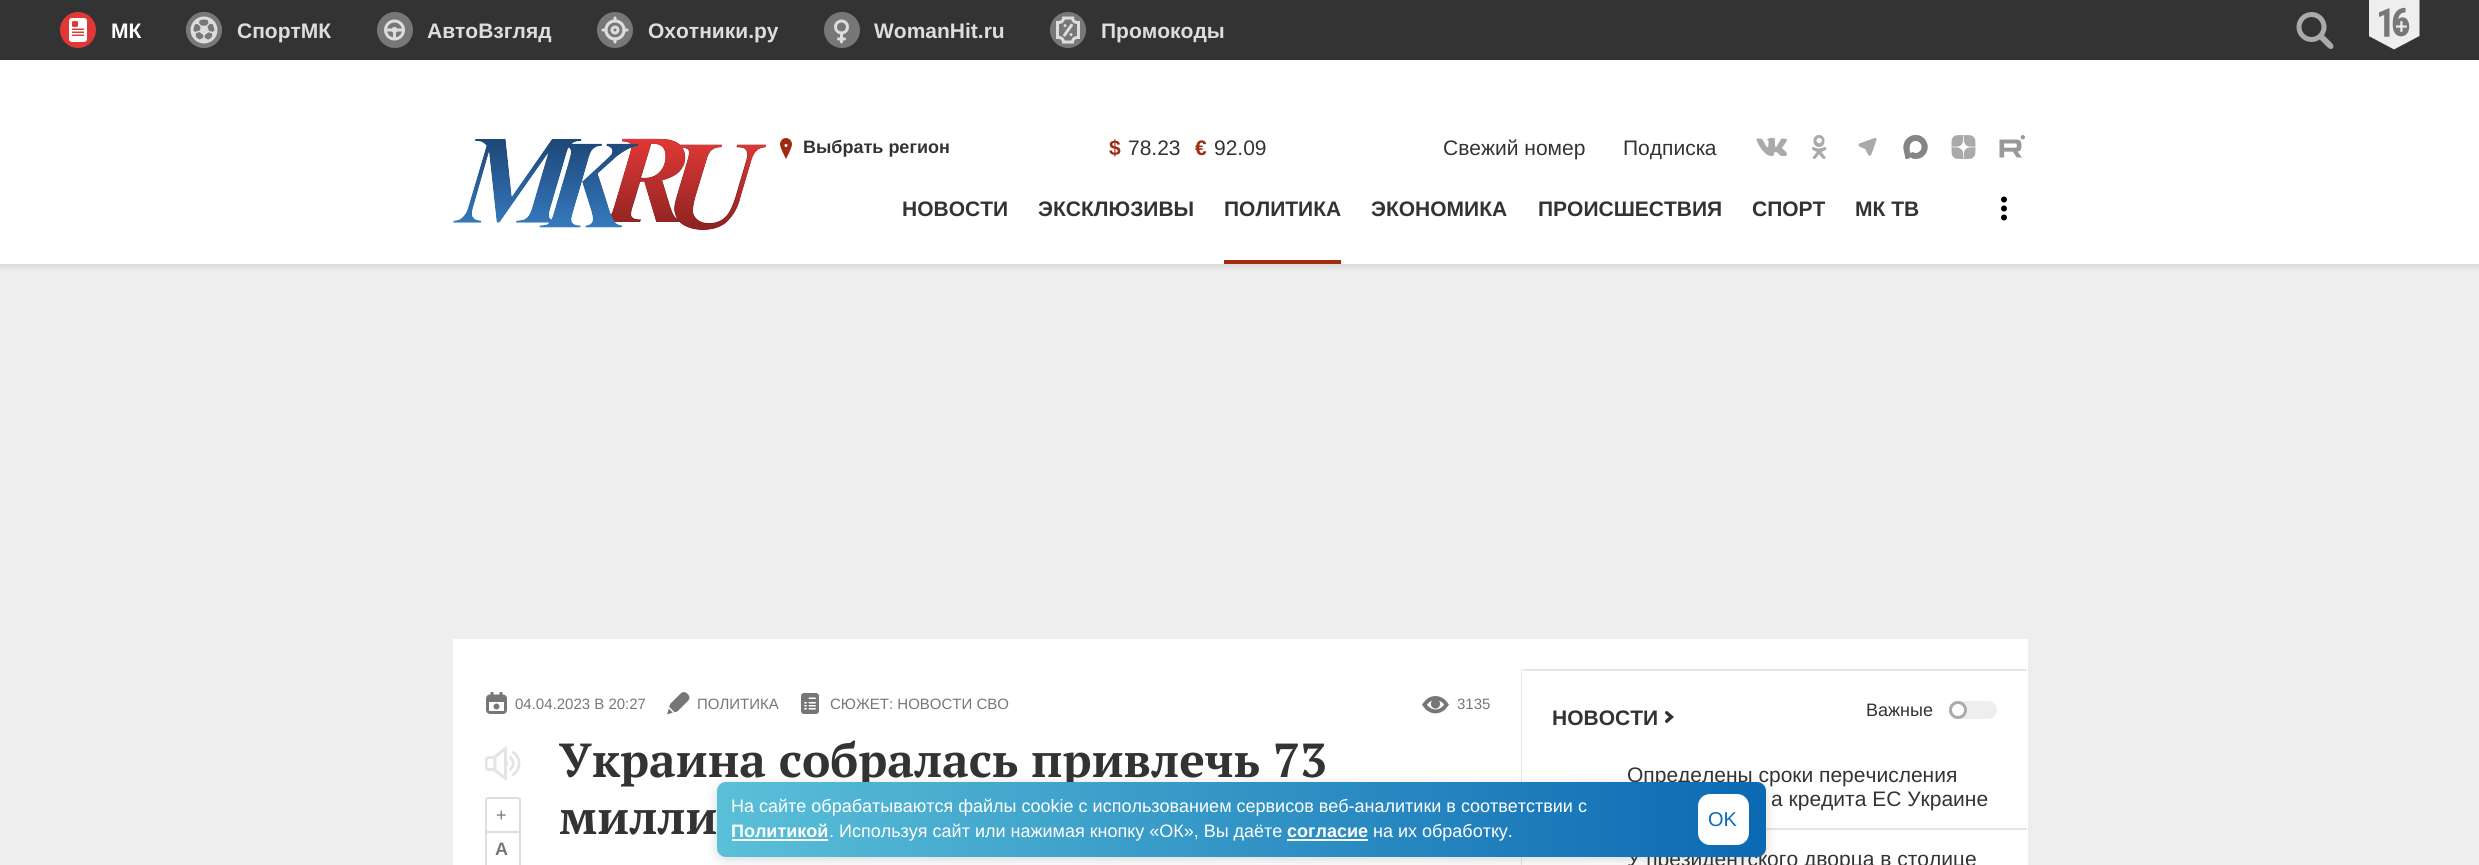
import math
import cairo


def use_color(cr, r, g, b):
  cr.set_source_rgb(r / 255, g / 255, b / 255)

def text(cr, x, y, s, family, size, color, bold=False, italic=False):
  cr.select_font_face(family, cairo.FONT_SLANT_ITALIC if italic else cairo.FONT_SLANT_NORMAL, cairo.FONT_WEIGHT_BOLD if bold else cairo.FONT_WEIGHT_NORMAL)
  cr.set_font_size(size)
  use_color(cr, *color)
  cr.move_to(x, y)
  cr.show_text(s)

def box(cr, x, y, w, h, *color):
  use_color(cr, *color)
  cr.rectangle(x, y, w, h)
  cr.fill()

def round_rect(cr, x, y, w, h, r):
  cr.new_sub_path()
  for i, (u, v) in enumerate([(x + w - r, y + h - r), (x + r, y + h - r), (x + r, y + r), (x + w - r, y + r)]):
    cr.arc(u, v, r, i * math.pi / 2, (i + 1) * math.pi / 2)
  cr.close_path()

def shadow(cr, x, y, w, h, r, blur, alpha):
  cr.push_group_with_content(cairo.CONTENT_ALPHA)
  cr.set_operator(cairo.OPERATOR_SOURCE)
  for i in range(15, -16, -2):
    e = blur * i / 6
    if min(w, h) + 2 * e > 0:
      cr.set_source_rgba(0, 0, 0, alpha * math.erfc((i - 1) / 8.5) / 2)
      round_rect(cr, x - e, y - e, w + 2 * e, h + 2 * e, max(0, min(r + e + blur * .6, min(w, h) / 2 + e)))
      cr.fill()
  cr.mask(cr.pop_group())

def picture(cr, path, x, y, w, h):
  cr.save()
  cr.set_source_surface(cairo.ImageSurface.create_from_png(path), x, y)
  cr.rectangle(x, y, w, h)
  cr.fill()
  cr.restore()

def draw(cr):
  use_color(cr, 238, 238, 238)
  cr.paint()
  box(cr, 0, 0, 2479, 60, 51, 51, 51)
  use_color(cr, 223, 56, 54)
  cr.arc(78, 30, 18, 0, 2 * math.pi)
  cr.fill()
  picture(cr, "img_01.png", 69, 18, 18, 24)
  use_color(cr, 119, 119, 119)
  cr.arc(204, 30, 18, 0, 2 * math.pi)
  cr.fill()
  picture(cr, "img_02.png", 186, 12, 36, 36)
  cr.arc(395, 30, 18, 0, 2 * math.pi)
  cr.fill()
  picture(cr, "img_03.png", 384, 19, 21, 22)
  cr.arc(615, 30, 18, 0, 2 * math.pi)
  cr.fill()
  picture(cr, "img_04.png", 601, 16, 28, 28)
  cr.arc(842, 30, 18, 0, 2 * math.pi)
  cr.fill()
  picture(cr, "img_05.png", 834, 19, 15, 25)
  cr.arc(1068, 30, 18, 0, 2 * math.pi)
  cr.fill()
  picture(cr, "img_06.png", 1056, 16, 24, 28)
  picture(cr, "img_07.png", 2296, 12, 38, 37)
  picture(cr, "img_08.png", 2369, 0, 51, 50)
  box(cr, 0, 120, 2479, 144, 255, 255, 255)
  cr.save()
  cr.rectangle(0, 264, 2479, 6)
  cr.clip()
  use_color(cr, 0, 0, 0)
  shadow(cr, 0, 123, 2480, 144, 0, 3, 0.1)
  cr.restore()
  box(cr, 0, 60, 2479, 60, 255, 255, 255)
  picture(cr, "img_09.png", 453, 138, 314, 92)
  picture(cr, "img_10.png", 780, 138, 12, 21)
  picture(cr, "img_11.png", 1756, 138, 31, 18)
  picture(cr, "img_12.png", 1812, 135, 15, 24)
  picture(cr, "img_13.png", 1858, 138, 19, 18)
  picture(cr, "img_14.png", 1903, 135, 25, 24)
  picture(cr, "img_15.png", 1951, 135, 25, 24)
  picture(cr, "img_16.png", 1999, 135, 26, 23)
  box(cr, 1224, 260, 117, 4, 159, 43, 17)
  picture(cr, "img_17.png", 2001, 196, 6, 25)
  box(cr, 453, 639, 1575, 226, 255, 255, 255)
  picture(cr, "img_18.png", 486, 692, 21, 22)
  picture(cr, "img_19.png", 667, 692, 23, 23)
  picture(cr, "img_20.png", 801, 693, 18, 21)
  picture(cr, "img_21.png", 1422, 696, 27, 18)
  picture(cr, "img_22.png", 485, 746, 36, 36)
  cr.new_path()
  cr.move_to(488, 798)
  cr.line_to(518, 798)
  cr.curve_to(519, 798, 520, 799, 520, 800)
  cr.line_to(520, 832)
  cr.line_to(486, 832)
  cr.line_to(486, 800)
  cr.curve_to(486, 799, 487, 798, 488, 798)
  cr.close_path()
  use_color(cr, 221, 221, 221)
  cr.stroke()
  cr.rectangle(486, 832, 34, 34)
  cr.stroke()
  use_color(cr, 230, 230, 230)
  cr.new_path()
  cr.move_to(1521, 669)
  cr.line_to(1521, 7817)
  cr.line_to(2025, 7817)
  cr.line_to(2025, 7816)
  cr.line_to(1522, 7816)
  cr.line_to(1522, 669)
  cr.close_path()
  cr.fill()
  box(cr, 1523, 669, 504, 2, 230, 230, 230)
  picture(cr, "img_23.png", 1665, 711, 9, 12)
  use_color(cr, 238, 238, 238)
  round_rect(cr, 1949, 701, 48, 18, 9)
  cr.fill()
  use_color(cr, 255, 255, 255)
  cr.arc(1958, 710, 7.5, 0, 2 * math.pi)
  cr.fill_preserve()
  use_color(cr, 170, 170, 170)
  cr.set_line_width(3)
  cr.stroke()
  box(cr, 1766, 828, 261, 2, 230, 230, 230)
  use_color(cr, 0, 0, 0)
  shadow(cr, 717, 785, 1049, 75, 9, 6, 0.15)
  text(cr, 111, 38, "МК", "Liberation Sans", 21, (255, 255, 255), bold=True)
  text(cr, 237, 38, "СпортМК", "Liberation Sans", 21, (221, 221, 221), bold=True)
  text(cr, 427, 38, "АвтоВзгляд", "Liberation Sans", 21, (221, 221, 221), bold=True)
  text(cr, 648, 38, "Охотники.ру", "Liberation Sans", 21, (221, 221, 221), bold=True)
  text(cr, 874, 38, "WomanHit.ru", "Liberation Sans", 21, (221, 221, 221), bold=True)
  text(cr, 1101, 38, "Промокоды", "Liberation Sans", 21, (221, 221, 221), bold=True)
  text(cr, 803, 153, "Выбрать регион", "Liberation Sans", 18, (51, 51, 51), bold=True)
  text(cr, 1109, 155, "$", "Liberation Sans", 21, (159, 43, 17), bold=True)
  text(cr, 1128, 155, "78.23", "Liberation Sans", 21, (51, 51, 51))
  text(cr, 1195, 155, "€", "Liberation Sans", 21, (159, 43, 17), bold=True)
  text(cr, 1214, 155, "92.09", "Liberation Sans", 21, (51, 51, 51))
  text(cr, 1443, 155, "Свежий номер", "Liberation Sans", 21, (51, 51, 51))
  text(cr, 1623, 155, "Подписка", "Liberation Sans", 21, (51, 51, 51))
  text(cr, 902, 216, "НОВОСТИ", "Liberation Sans", 21, (51, 51, 51), bold=True)
  text(cr, 1038, 216, "ЭКСКЛЮЗИВЫ", "Liberation Sans", 21, (51, 51, 51), bold=True)
  text(cr, 1224, 216, "ПОЛИТИКА", "Liberation Sans", 21, (51, 51, 51), bold=True)
  text(cr, 1371, 216, "ЭКОНОМИКА", "Liberation Sans", 21, (51, 51, 51), bold=True)
  text(cr, 1538, 216, "ПРОИСШЕСТВИЯ", "Liberation Sans", 21, (51, 51, 51), bold=True)
  text(cr, 1752, 216, "СПОРТ", "Liberation Sans", 21, (51, 51, 51), bold=True)
  text(cr, 1855, 216, "МК ТВ", "Liberation Sans", 21, (51, 51, 51), bold=True)
  text(cr, 515, 709, "04.04.2023 В 20:27", "Liberation Sans", 15, (119, 119, 119))
  text(cr, 697, 709, "ПОЛИТИКА", "Liberation Sans", 15, (119, 119, 119))
  text(cr, 830, 709, "СЮЖЕТ: НОВОСТИ СВО", "Liberation Sans", 15, (119, 119, 119))
  text(cr, 1457, 709, "3135", "Liberation Sans", 15, (119, 119, 119))
  text(cr, 496, 821, "+", "Liberation Sans", 18, (119, 119, 119))
  text(cr, 495, 855, "A", "Liberation Sans", 18, (119, 119, 119), bold=True)
  text(cr, 559, 777, "Украина собралась привлечь 73", "PT Serif", 47.75, (51, 51, 51), bold=True)
  text(cr, 559, 834, "милли", "PT Serif", 47.75, (51, 51, 51), bold=True)
  text(cr, 1552, 725, "НОВОСТИ", "Liberation Sans", 21, (51, 51, 51), bold=True)
  text(cr, 1866, 716, "Важные", "Liberation Sans", 18, (51, 51, 51))
  text(cr, 1627, 782, "Определены сроки перечисления", "Liberation Sans", 21, (51, 51, 51))
  text(cr, 1771, 806, "а кредита ЕС Украине", "Liberation Sans", 21, (51, 51, 51))
  text(cr, 1627, 866, "У президентского дворца в столице", "Liberation Sans", 21, (51, 51, 51))
  gradient = cairo.LinearGradient(716, 819, 1765, 819)
  gradient.add_color_stop_rgba(0, 0.353, 0.753, 0.847, 1)
  gradient.add_color_stop_rgba(1, 0.043, 0.412, 0.702, 1)
  cr.set_source(gradient)
  round_rect(cr, 717, 782, 1049, 75, 9)
  cr.fill()
  text(cr, 731, 812, "На сайте обрабатываются файлы cookie с использованием сервисов веб-аналитики в соответствии с", "Liberation Sans", 18, (255, 255, 255))
  text(cr, 731, 837, "Политикой", "Liberation Sans", 18, (255, 255, 255), bold=True)
  box(cr, 732, 839, 96, 2, 255, 255, 255)
  text(cr, 829, 837, ". Используя сайт или нажимая кнопку «ОК», Вы даёте", "Liberation Sans", 18, (255, 255, 255))
  text(cr, 1287, 837, "согласие", "Liberation Sans", 18, (255, 255, 255), bold=True)
  box(cr, 1287, 839, 81, 2, 255, 255, 255)
  text(cr, 1373, 837, "на их обработку.", "Liberation Sans", 18, (255, 255, 255))
  round_rect(cr, 1698, 794, 51, 51, 12)
  cr.fill()
  text(cr, 1708, 826, "OK", "Liberation Sans", 20, (13, 107, 179))


surface = cairo.ImageSurface(cairo.FORMAT_RGB24, 2479, 865)
cr = cairo.Context(surface)
options = cairo.FontOptions()
options.set_hint_metrics(cairo.HINT_METRICS_OFF)
options.set_hint_style(cairo.HINT_STYLE_NONE)
cr.set_font_options(options)
cr.set_miter_limit(4)
draw(cr)
surface.write_to_png("out.png")
